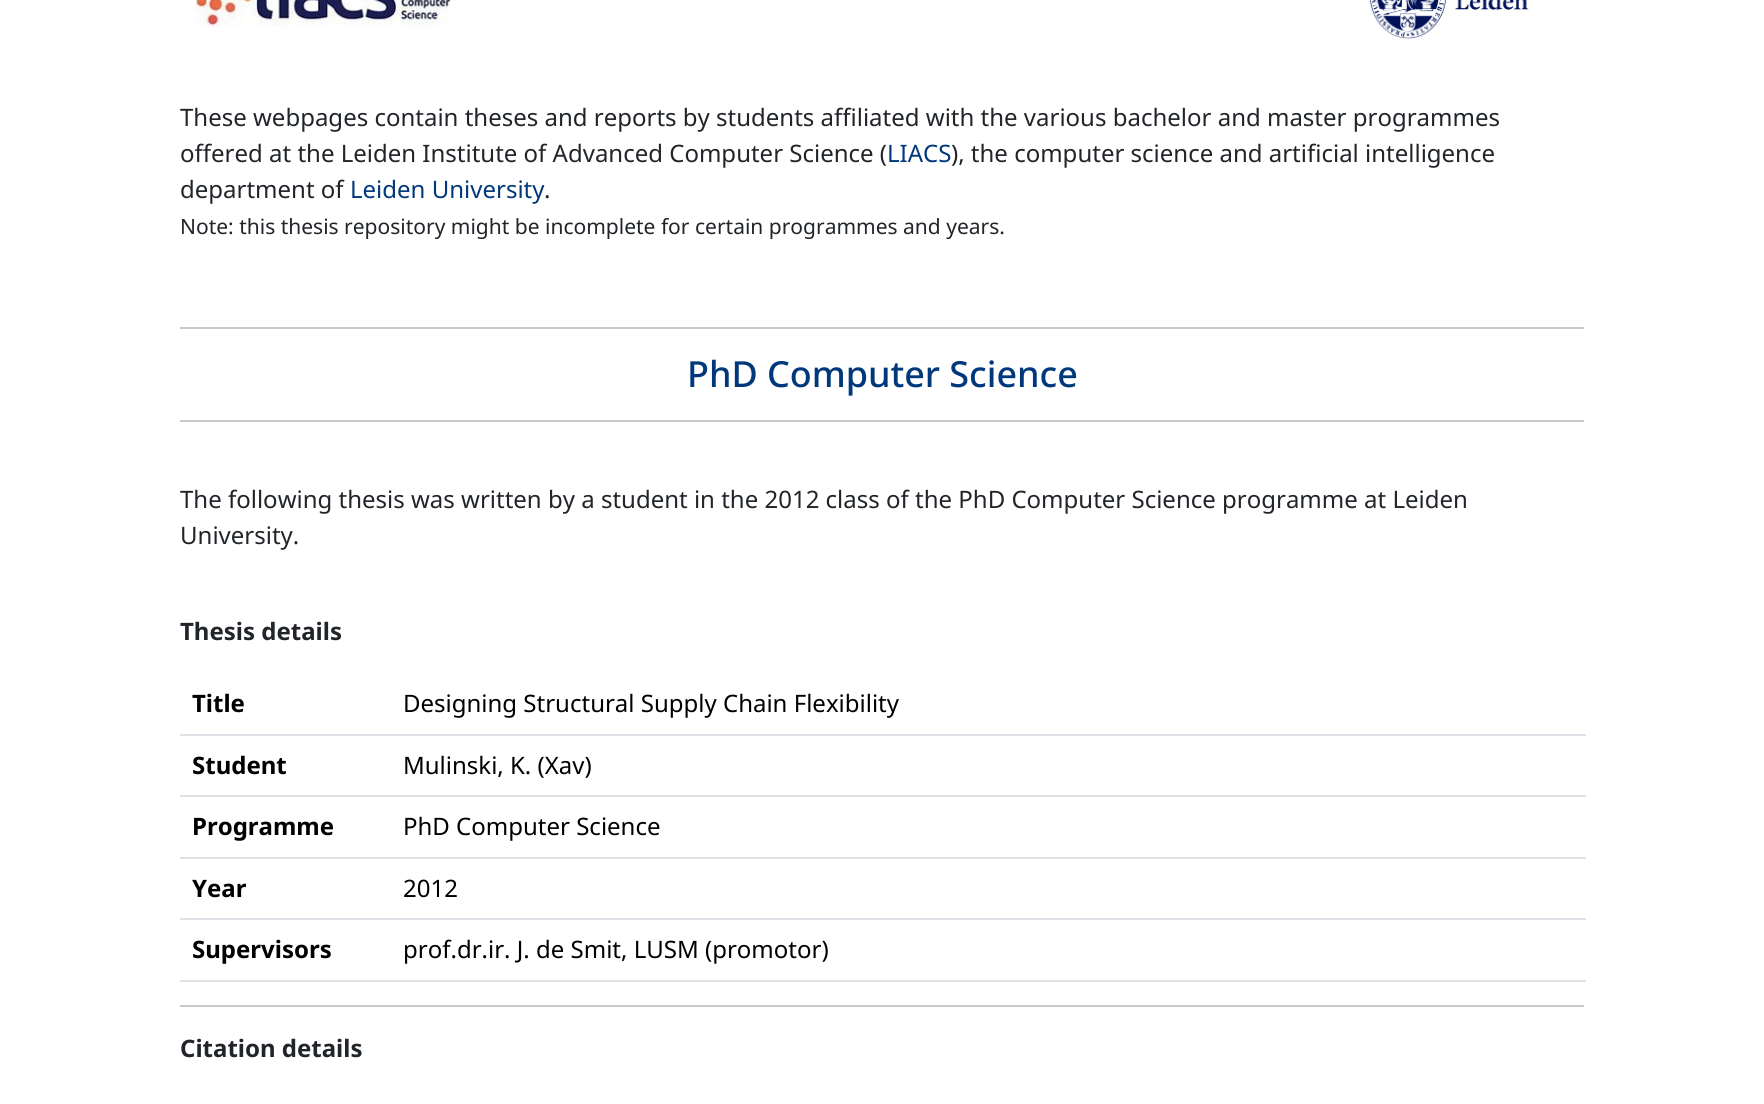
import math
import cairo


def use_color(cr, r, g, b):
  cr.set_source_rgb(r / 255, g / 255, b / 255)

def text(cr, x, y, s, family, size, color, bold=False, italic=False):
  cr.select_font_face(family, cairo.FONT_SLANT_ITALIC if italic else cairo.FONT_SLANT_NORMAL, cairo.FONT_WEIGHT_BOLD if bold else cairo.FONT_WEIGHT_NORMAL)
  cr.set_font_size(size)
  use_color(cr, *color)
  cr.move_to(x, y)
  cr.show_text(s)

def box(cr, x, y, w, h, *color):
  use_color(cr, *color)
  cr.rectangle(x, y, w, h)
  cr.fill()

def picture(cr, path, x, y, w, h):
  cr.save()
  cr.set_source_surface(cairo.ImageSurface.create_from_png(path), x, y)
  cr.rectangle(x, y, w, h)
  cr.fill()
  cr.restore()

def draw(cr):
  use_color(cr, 255, 255, 255)
  cr.paint()
  picture(cr, "img_01.png", 195, 0, 260, 28)
  picture(cr, "img_02.png", 1369, 0, 160, 39)
  box(cr, 180, 327, 1404, 2, 200, 201, 202)
  box(cr, 180, 420, 1404, 2, 200, 201, 202)
  box(cr, 180, 734, 1406, 2, 222, 226, 230)
  box(cr, 180, 795, 1406, 2, 222, 226, 230)
  box(cr, 180, 857, 1406, 2, 222, 226, 230)
  box(cr, 180, 918, 1406, 2, 222, 226, 230)
  box(cr, 180, 980, 1406, 2, 222, 226, 230)
  box(cr, 180, 1005, 1404, 2, 200, 201, 202)
  text(cr, 180, 126, "These webpages contain theses and reports by students affiliated with the various bachelor and master programmes", "Noto Sans", 24, (33, 37, 41))
  text(cr, 180, 162, "offered at the Leiden Institute of Advanced Computer Science (", "Noto Sans", 24, (33, 37, 41))
  text(cr, 887, 162, "LIACS", "Noto Sans", 24, (0, 56, 123))
  text(cr, 951, 162, "), the computer science and artificial intelligence", "Noto Sans", 24, (33, 37, 41))
  text(cr, 180, 198, "department of", "Noto Sans", 24, (33, 37, 41))
  text(cr, 350, 198, "Leiden University", "Noto Sans", 24, (0, 56, 123))
  text(cr, 544, 198, ".", "Noto Sans", 24, (33, 37, 41))
  text(cr, 180, 234, "Note: this thesis repository might be incomplete for certain programmes and years.", "Noto Sans", 21, (33, 37, 41))
  text(cr, 687, 387, "PhD Computer Science", "Noto Sans Medium", 35.9, (0, 56, 123))
  text(cr, 180, 508, "The following thesis was written by a student in the 2012 class of the PhD Computer Science programme at Leiden", "Noto Sans", 24, (33, 37, 41))
  text(cr, 180, 544, "University.", "Noto Sans", 24, (33, 37, 41))
  text(cr, 180, 640, "Thesis details", "Noto Sans", 24, (33, 37, 41), bold=True)
  text(cr, 192, 712, "Title", "Noto Sans", 24, (0, 0, 0), bold=True)
  text(cr, 403, 712, "Designing Structural Supply Chain Flexibility", "Noto Sans", 24, (0, 0, 0))
  text(cr, 192, 774, "Student", "Noto Sans", 24, (0, 0, 0), bold=True)
  text(cr, 403, 774, "Mulinski, K. (Xav)", "Noto Sans", 24, (0, 0, 0))
  text(cr, 192, 835, "Programme", "Noto Sans", 24, (0, 0, 0), bold=True)
  text(cr, 403, 835, "PhD Computer Science", "Noto Sans", 24, (0, 0, 0))
  text(cr, 192, 897, "Year", "Noto Sans", 24, (0, 0, 0), bold=True)
  text(cr, 403, 897, "2012", "Noto Sans", 24, (0, 0, 0))
  text(cr, 192, 958, "Supervisors", "Noto Sans", 24, (0, 0, 0), bold=True)
  text(cr, 403, 958, "prof.dr.ir. J. de Smit, LUSM (promotor)", "Noto Sans", 24, (0, 0, 0))
  text(cr, 180, 1057, "Citation details", "Noto Sans", 24, (33, 37, 41), bold=True)


surface = cairo.ImageSurface(cairo.FORMAT_RGB24, 1764, 1104)
cr = cairo.Context(surface)
options = cairo.FontOptions()
options.set_hint_metrics(cairo.HINT_METRICS_OFF)
options.set_hint_style(cairo.HINT_STYLE_NONE)
cr.set_font_options(options)
cr.set_miter_limit(4)
draw(cr)
surface.write_to_png("out.png")
